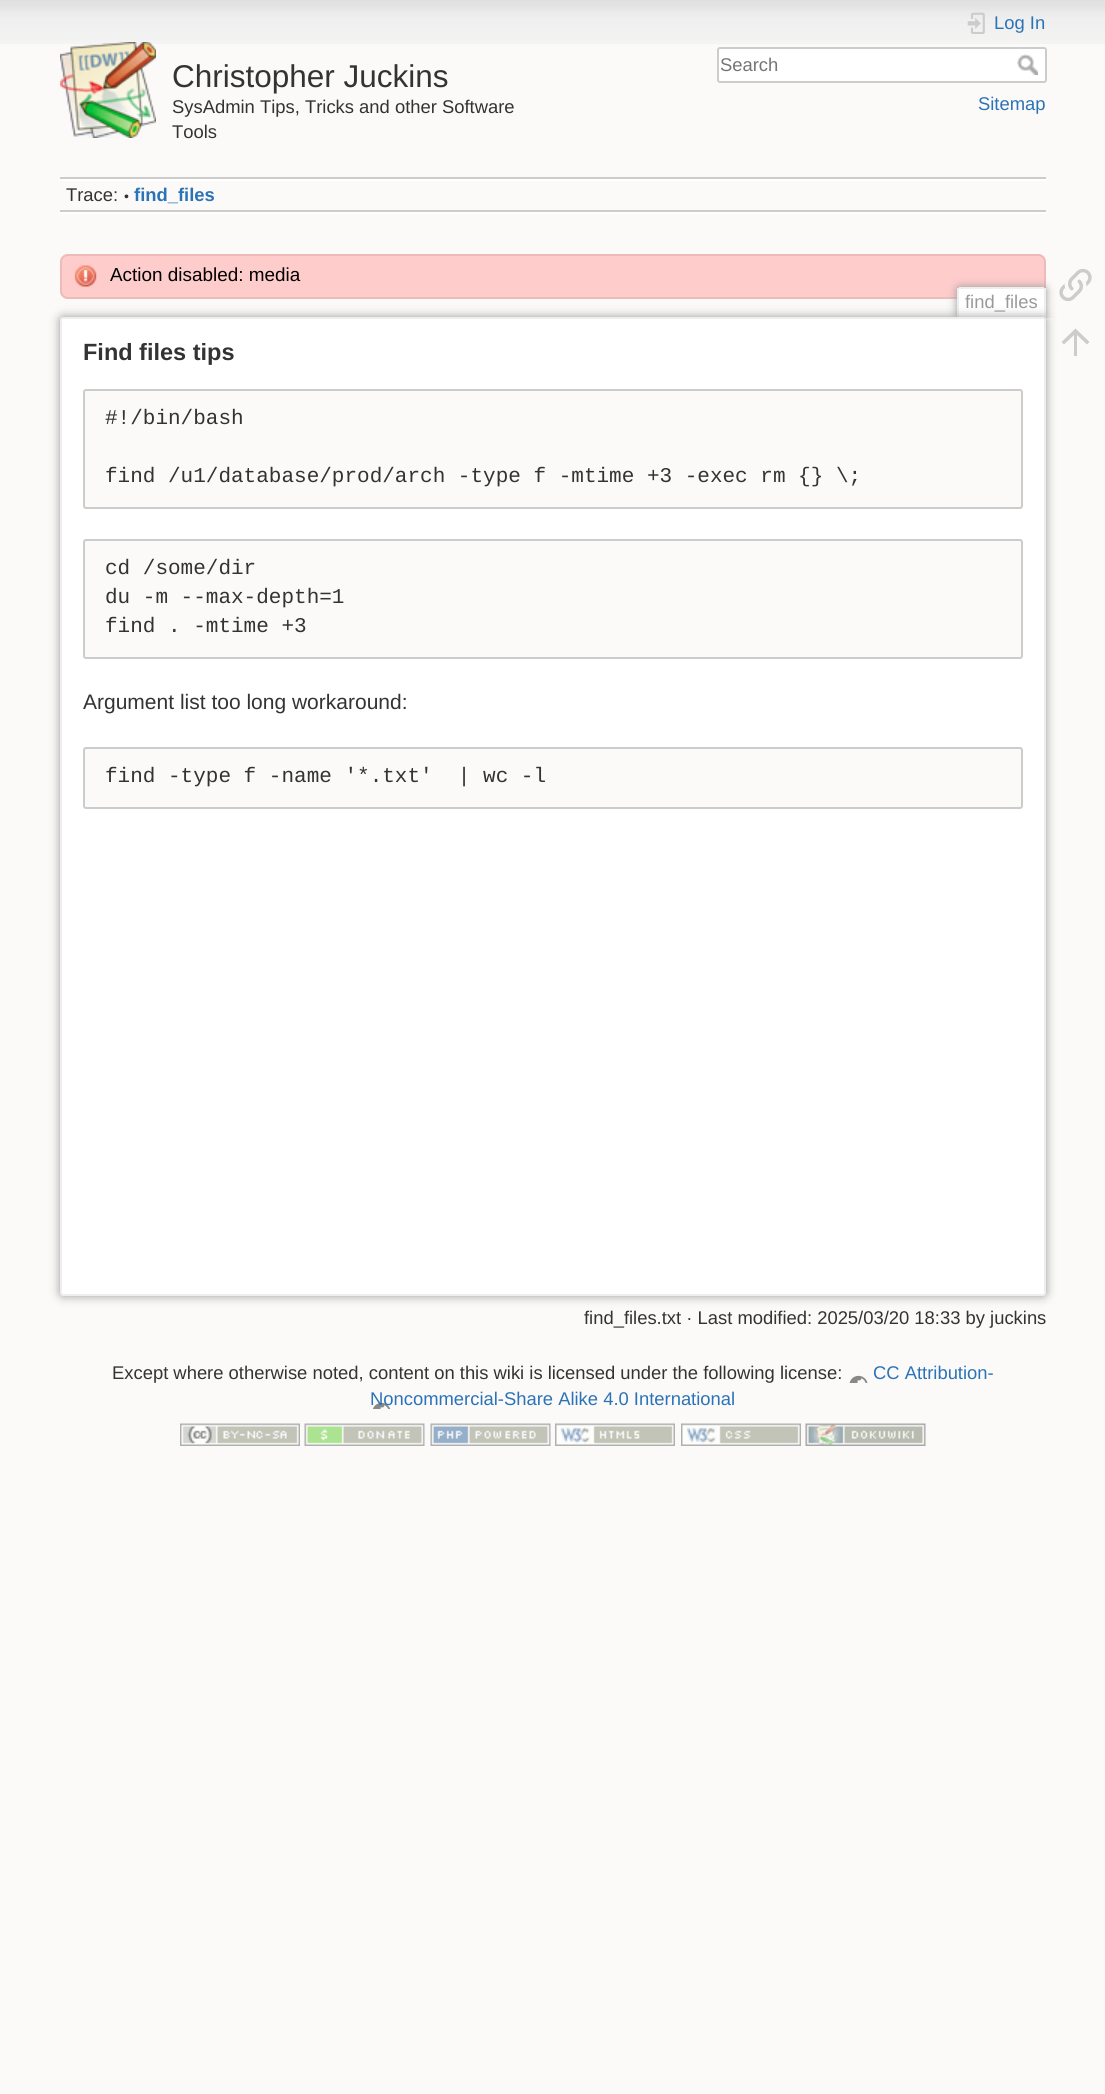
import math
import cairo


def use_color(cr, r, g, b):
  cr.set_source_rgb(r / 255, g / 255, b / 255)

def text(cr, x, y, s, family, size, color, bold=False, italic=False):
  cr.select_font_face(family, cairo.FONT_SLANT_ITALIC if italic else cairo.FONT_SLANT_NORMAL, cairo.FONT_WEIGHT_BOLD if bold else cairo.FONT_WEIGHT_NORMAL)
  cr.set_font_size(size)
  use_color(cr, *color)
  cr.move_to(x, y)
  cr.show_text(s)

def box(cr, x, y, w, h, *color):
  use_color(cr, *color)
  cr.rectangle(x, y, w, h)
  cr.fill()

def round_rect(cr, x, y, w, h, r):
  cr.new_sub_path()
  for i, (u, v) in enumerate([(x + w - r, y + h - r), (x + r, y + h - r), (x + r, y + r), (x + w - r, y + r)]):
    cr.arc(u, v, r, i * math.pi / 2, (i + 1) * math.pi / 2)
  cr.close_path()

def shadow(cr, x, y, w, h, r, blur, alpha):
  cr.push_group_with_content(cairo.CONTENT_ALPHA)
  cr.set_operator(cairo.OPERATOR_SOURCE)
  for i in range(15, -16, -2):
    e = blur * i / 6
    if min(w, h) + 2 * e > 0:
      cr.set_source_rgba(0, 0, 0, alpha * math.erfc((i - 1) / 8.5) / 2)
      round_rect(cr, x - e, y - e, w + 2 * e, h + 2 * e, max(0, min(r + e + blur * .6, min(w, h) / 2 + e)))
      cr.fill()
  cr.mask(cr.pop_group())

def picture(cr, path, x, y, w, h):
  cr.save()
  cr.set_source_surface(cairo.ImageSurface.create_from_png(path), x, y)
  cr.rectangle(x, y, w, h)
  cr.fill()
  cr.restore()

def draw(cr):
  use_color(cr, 251, 250, 249)
  cr.paint()
  picture(cr, "img_01.png", 0, 0, 1105, 44)
  picture(cr, "img_02.png", 60, 42, 96, 96)
  picture(cr, "img_03.png", 967, 12, 18, 22)
  use_color(cr, 255, 255, 255)
  round_rect(cr, 718, 48, 328, 34, 2)
  cr.fill_preserve()
  use_color(cr, 204, 204, 204)
  cr.stroke()
  picture(cr, "img_04.png", 1017, 54, 21, 21)
  box(cr, 60, 177, 986, 2, 204, 204, 204)
  box(cr, 60, 212, 986, 2, 255, 255, 255)
  box(cr, 60, 179, 986, 2, 255, 255, 255)
  box(cr, 60, 210, 986, 2, 204, 204, 204)
  use_color(cr, 255, 204, 204)
  round_rect(cr, 60, 254, 986, 45, 8)
  cr.fill()
  picture(cr, "img_05.png", 74, 265, 23, 22)
  round_rect(cr, 61, 255, 984, 43, 7)
  use_color(cr, 238, 187, 187)
  cr.stroke()
  cr.save()
  cr.rectangle(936, 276, 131, 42)
  cr.clip()
  use_color(cr, 153, 153, 153)
  shadow(cr, 957, 287, 89, 31, 3, 4.5, 1)
  cr.restore()
  box(cr, 959, 289, 85, 29, 255, 255, 255)
  box(cr, 959, 287, 85, 2, 238, 238, 238)
  box(cr, 1044, 288, 2, 30, 238, 238, 238)
  box(cr, 957, 288, 2, 30, 238, 238, 238)
  use_color(cr, 153, 153, 153)
  shadow(cr, 60, 317, 986, 979, 3, 5, 1)
  use_color(cr, 255, 255, 255)
  round_rect(cr, 61, 318, 984, 977, 2)
  cr.fill_preserve()
  use_color(cr, 238, 238, 238)
  cr.stroke()
  use_color(cr, 251, 250, 249)
  round_rect(cr, 84, 390, 938, 118, 2)
  cr.fill_preserve()
  use_color(cr, 204, 204, 204)
  cr.stroke()
  use_color(cr, 251, 250, 249)
  round_rect(cr, 84, 540, 938, 118, 2)
  cr.fill_preserve()
  use_color(cr, 204, 204, 204)
  cr.stroke()
  use_color(cr, 251, 250, 249)
  round_rect(cr, 84, 748, 938, 60, 2)
  cr.fill_preserve()
  use_color(cr, 204, 204, 204)
  cr.stroke()
  picture(cr, "img_06.png", 1059, 268, 33, 34)
  cr.new_path()
  cr.move_to(1077, 356)
  cr.line_to(1074, 356)
  cr.line_to(1074, 335)
  cr.line_to(1064, 344.5)
  cr.line_to(1061.5, 342)
  cr.line_to(1075.5, 328.5)
  cr.line_to(1089.5, 342)
  cr.line_to(1087, 344.5)
  cr.line_to(1077, 335)
  cr.close_path()
  cr.fill()
  picture(cr, "img_08.png", 180, 1423, 120, 23)
  picture(cr, "img_09.png", 304, 1423, 121, 23)
  picture(cr, "img_10.png", 430, 1423, 121, 23)
  picture(cr, "img_11.png", 555, 1423, 120, 23)
  picture(cr, "img_12.png", 681, 1423, 120, 23)
  picture(cr, "img_13.png", 805, 1423, 121, 23)
  text(cr, 172, 87, "Christopher Juckins", "Liberation Sans", 31.5, (51, 51, 51))
  text(cr, 172, 113, "SysAdmin Tips, Tricks and other Software", "Liberation Sans", 18.4, (51, 51, 51))
  text(cr, 172, 138, "Tools", "Liberation Sans", 18.4, (51, 51, 51))
  text(cr, 994, 29, "Log In", "Liberation Sans", 18.4, (43, 115, 183))
  text(cr, 720, 71, "Search", "Liberation Sans", 18.4, (117, 117, 117))
  text(cr, 978, 110, "Sitemap", "Liberation Sans", 18.4, (43, 115, 183))
  text(cr, 66, 201, "Trace:", "Liberation Sans", 18.4, (51, 51, 51))
  text(cr, 124, 201, "•", "Liberation Sans", 14, (51, 51, 51))
  text(cr, 134, 201, "find_files", "Liberation Sans", 18.4, (43, 115, 183), bold=True)
  text(cr, 110, 281, "Action disabled: media", "Liberation Sans", 18.9, (0, 0, 0))
  text(cr, 965, 308, "find_files", "Liberation Sans", 18.4, (153, 153, 153))
  text(cr, 83, 360, "Find files tips", "Liberation Sans", 23.5, (51, 51, 51), bold=True)
  text(cr, 105, 424, "#!/bin/bash", "Liberation Mono", 21, (51, 51, 51))
  text(cr, 105, 482, "find /u1/database/prod/arch -type f -mtime +3 -exec rm {} \\;", "Liberation Mono", 21, (51, 51, 51))
  text(cr, 105, 574, "cd /some/dir", "Liberation Mono", 21, (51, 51, 51))
  text(cr, 105, 603, "du -m --max-depth=1", "Liberation Mono", 21, (51, 51, 51))
  text(cr, 105, 632, "find . -mtime +3", "Liberation Mono", 21, (51, 51, 51))
  text(cr, 83, 709, "Argument list too long workaround:", "Liberation Sans", 21, (51, 51, 51))
  text(cr, 105, 782, "find -type f -name '*.txt'  | wc -l", "Liberation Mono", 21, (51, 51, 51))
  text(cr, 584, 1324, "find_files.txt · Last modified: 2025/03/20 18:33 by juckins", "Liberation Sans", 18.4, (51, 51, 51))
  text(cr, 112, 1379, "Except where otherwise noted, content on this wiki is licensed under the following license:", "Liberation Sans", 18.4, (51, 51, 51))
  text(cr, 873, 1379, "CC Attribution-", "Liberation Sans", 18.4, (43, 115, 183))
  picture(cr, "img_07.png", 373, 1375, 495, 34)
  text(cr, 370, 1405, "Noncommercial-Share Alike 4.0 International", "Liberation Sans", 18.4, (43, 115, 183))


surface = cairo.ImageSurface(cairo.FORMAT_RGB24, 1105, 2094)
cr = cairo.Context(surface)
options = cairo.FontOptions()
options.set_hint_metrics(cairo.HINT_METRICS_OFF)
options.set_hint_style(cairo.HINT_STYLE_NONE)
cr.set_font_options(options)
cr.set_miter_limit(4)
draw(cr)
surface.write_to_png("out.png")
